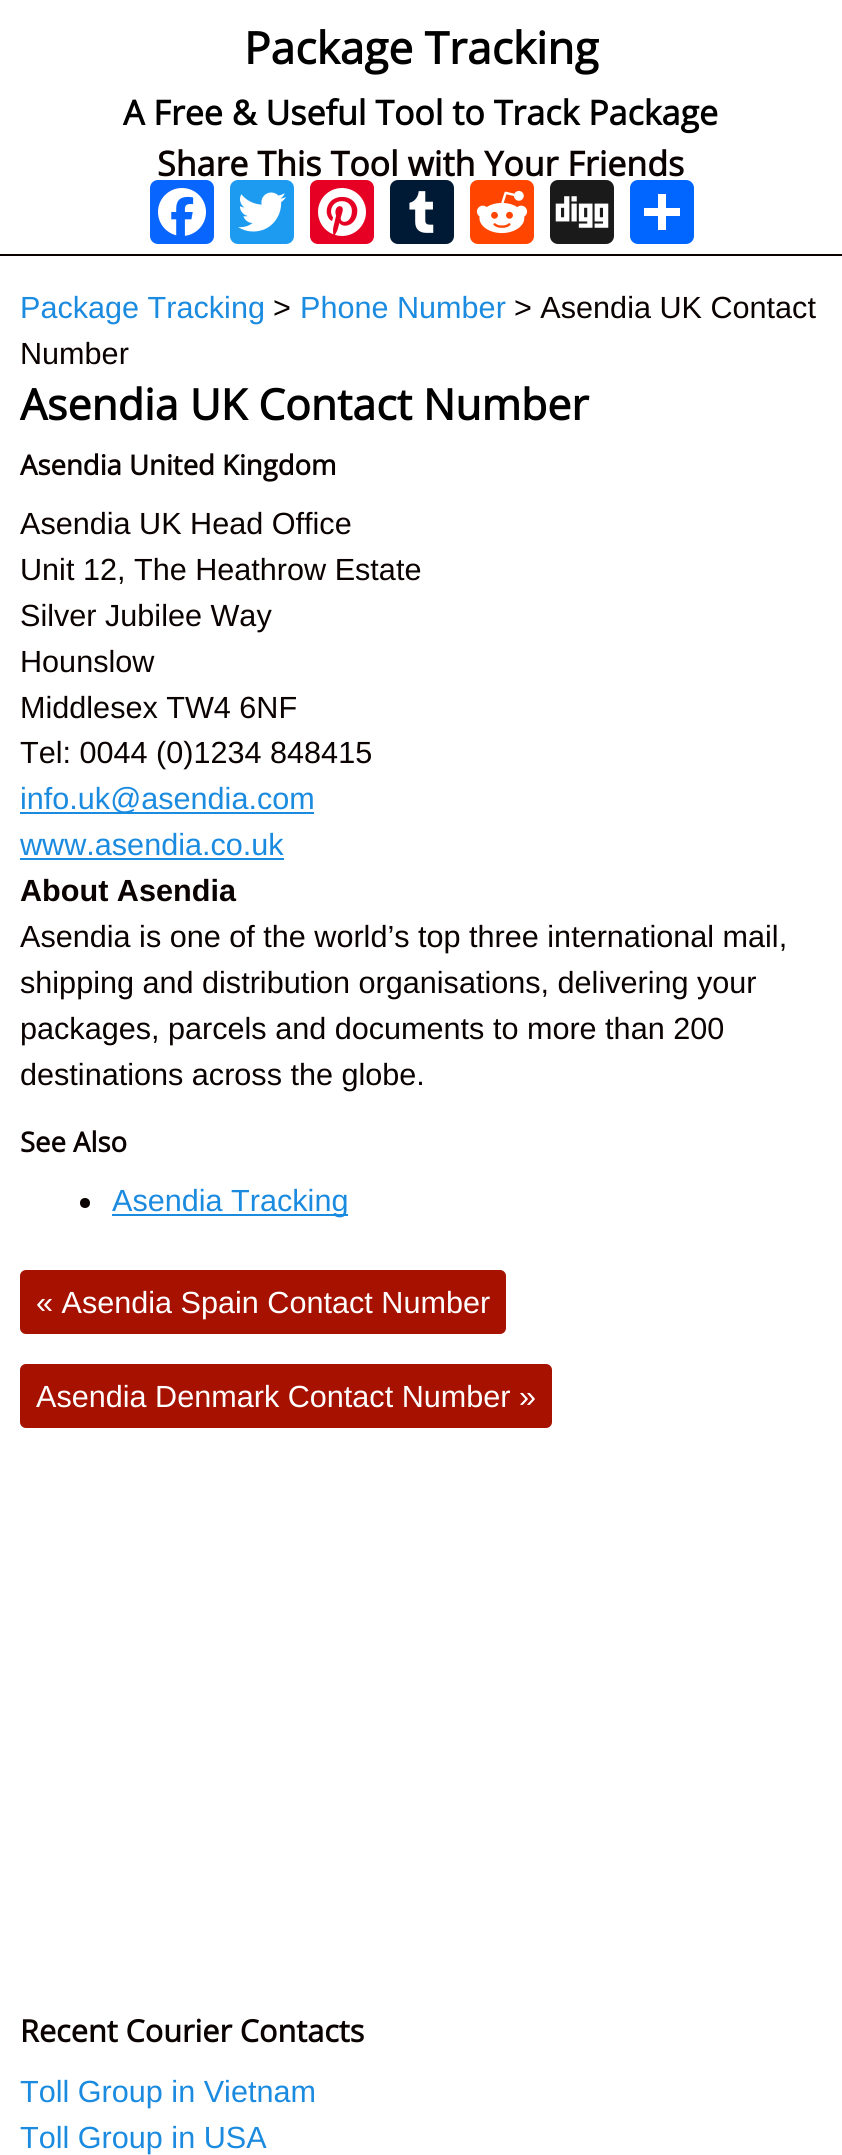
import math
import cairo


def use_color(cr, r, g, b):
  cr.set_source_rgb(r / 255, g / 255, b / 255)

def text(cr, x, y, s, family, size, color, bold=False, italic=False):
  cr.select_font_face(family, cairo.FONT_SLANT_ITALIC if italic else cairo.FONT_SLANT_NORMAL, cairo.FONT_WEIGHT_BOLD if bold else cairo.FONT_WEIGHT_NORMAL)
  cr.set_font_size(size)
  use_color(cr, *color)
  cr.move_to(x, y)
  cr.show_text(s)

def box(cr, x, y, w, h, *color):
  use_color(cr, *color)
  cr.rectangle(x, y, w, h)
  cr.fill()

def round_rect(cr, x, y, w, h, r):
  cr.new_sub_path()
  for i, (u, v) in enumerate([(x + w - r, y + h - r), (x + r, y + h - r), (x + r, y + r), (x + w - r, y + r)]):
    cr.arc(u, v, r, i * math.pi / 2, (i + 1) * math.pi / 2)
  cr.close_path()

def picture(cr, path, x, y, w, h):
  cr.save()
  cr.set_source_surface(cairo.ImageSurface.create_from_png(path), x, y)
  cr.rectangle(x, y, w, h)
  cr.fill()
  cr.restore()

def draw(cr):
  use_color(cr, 255, 255, 255)
  cr.paint()
  box(cr, 0, 254, 842, 2, 10, 2, 0)
  use_color(cr, 8, 102, 255)
  round_rect(cr, 150, 180, 64, 64, 8)
  cr.fill()
  picture(cr, "img_01.png", 158, 188, 48, 48)
  use_color(cr, 29, 155, 240)
  round_rect(cr, 230, 180, 64, 64, 8)
  cr.fill()
  picture(cr, "img_02.png", 238, 192, 48, 40)
  use_color(cr, 230, 0, 35)
  round_rect(cr, 310, 180, 64, 64, 8)
  cr.fill()
  picture(cr, "img_03.png", 318, 188, 48, 48)
  use_color(cr, 0, 25, 53)
  round_rect(cr, 390, 180, 64, 64, 8)
  cr.fill()
  picture(cr, "img_04.png", 409, 191, 25, 42)
  use_color(cr, 255, 69, 0)
  round_rect(cr, 470, 180, 64, 64, 8)
  cr.fill()
  picture(cr, "img_05.png", 476, 190, 52, 44)
  use_color(cr, 26, 26, 26)
  round_rect(cr, 550, 180, 64, 64, 8)
  cr.fill()
  picture(cr, "img_06.png", 555, 196, 54, 32)
  use_color(cr, 1, 102, 255)
  round_rect(cr, 630, 180, 64, 64, 8)
  cr.fill()
  box(cr, 658, 194, 8, 36, 255, 255, 255)
  box(cr, 644, 208, 36, 8, 255, 255, 255)
  box(cr, 20, 812, 294, 2, 27, 139, 224)
  box(cr, 20, 858, 264, 2, 27, 139, 224)
  use_color(cr, 10, 2, 0)
  cr.arc(85, 1203, 5, 0, 2 * math.pi)
  cr.fill()
  box(cr, 112, 1214, 236, 2, 27, 139, 224)
  use_color(cr, 166, 17, 0)
  round_rect(cr, 20, 1270, 486, 64, 6)
  cr.fill()
  round_rect(cr, 20, 1364, 532, 64, 6)
  cr.fill()
  text(cr, 244, 64, "Package Tracking", "Open Sans", 44.25, (0, 0, 0), bold=True)
  text(cr, 123, 125, "A Free & Useful Tool to Track Package", "Open Sans", 34, (0, 0, 0), bold=True)
  text(cr, 157, 176, "Share This Tool with Your Friends", "Open Sans", 34, (10, 2, 0), bold=True)
  text(cr, 20, 318, "Package Tracking", "Liberation Sans", 30.6, (27, 139, 224))
  text(cr, 273, 318, ">", "Liberation Sans", 30.6, (10, 2, 0))
  text(cr, 300, 318, "Phone Number", "Liberation Sans", 30.6, (27, 139, 224))
  text(cr, 514, 318, "> Asendia UK Contact", "Liberation Sans", 30.6, (10, 2, 0))
  text(cr, 20, 364, "Number", "Liberation Sans", 30.6, (10, 2, 0))
  text(cr, 20, 420, "Asendia UK Contact Number", "Open Sans", 42.8, (0, 0, 0), bold=True)
  text(cr, 20, 475, "Asendia United Kingdom", "Open Sans", 27.5, (10, 2, 0), bold=True)
  text(cr, 20, 534, "Asendia UK Head Office", "Liberation Sans", 30.6, (10, 2, 0))
  text(cr, 20, 580, "Unit 12, The Heathrow Estate", "Liberation Sans", 30.6, (10, 2, 0))
  text(cr, 20, 626, "Silver Jubilee Way", "Liberation Sans", 30.6, (10, 2, 0))
  text(cr, 20, 672, "Hounslow", "Liberation Sans", 30.6, (10, 2, 0))
  text(cr, 20, 718, "Middlesex TW4 6NF", "Liberation Sans", 30.6, (10, 2, 0))
  text(cr, 20, 763, "Tel: 0044 (0)1234 848415", "Liberation Sans", 30.6, (10, 2, 0))
  text(cr, 20, 809, "info.uk@asendia.com", "Liberation Sans", 30.6, (27, 139, 224))
  text(cr, 20, 855, "www.asendia.co.uk", "Liberation Sans", 30.6, (27, 139, 224))
  text(cr, 20, 901, "About Asendia", "Liberation Sans", 30.6, (10, 2, 0), bold=True)
  text(cr, 20, 947, "Asendia is one of the world’s top three international mail,", "Liberation Sans", 30.6, (10, 2, 0))
  text(cr, 20, 993, "shipping and distribution organisations, delivering your", "Liberation Sans", 30.6, (10, 2, 0))
  text(cr, 20, 1039, "packages, parcels and documents to more than 200", "Liberation Sans", 30.6, (10, 2, 0))
  text(cr, 20, 1085, "destinations across the globe.", "Liberation Sans", 30.6, (10, 2, 0))
  text(cr, 20, 1152, "See Also", "Open Sans", 27.5, (10, 2, 0), bold=True)
  text(cr, 112, 1211, "Asendia Tracking", "Liberation Sans", 30.6, (27, 139, 224))
  text(cr, 36, 1313, "« Asendia Spain Contact Number", "Liberation Sans", 30.6, (255, 255, 255))
  text(cr, 36, 1407, "Asendia Denmark Contact Number »", "Liberation Sans", 30.6, (255, 255, 255))
  text(cr, 20, 2042, "Recent Courier Contacts", "Open Sans", 30.6, (10, 2, 0), bold=True)
  text(cr, 20, 2102, "Toll Group in Vietnam", "Liberation Sans", 30.6, (27, 139, 224))
  text(cr, 20, 2148, "Toll Group in USA", "Liberation Sans", 30.6, (27, 139, 224))


surface = cairo.ImageSurface(cairo.FORMAT_RGB24, 842, 2155)
cr = cairo.Context(surface)
options = cairo.FontOptions()
options.set_hint_metrics(cairo.HINT_METRICS_OFF)
options.set_hint_style(cairo.HINT_STYLE_NONE)
cr.set_font_options(options)
cr.set_miter_limit(4)
draw(cr)
surface.write_to_png("out.png")
